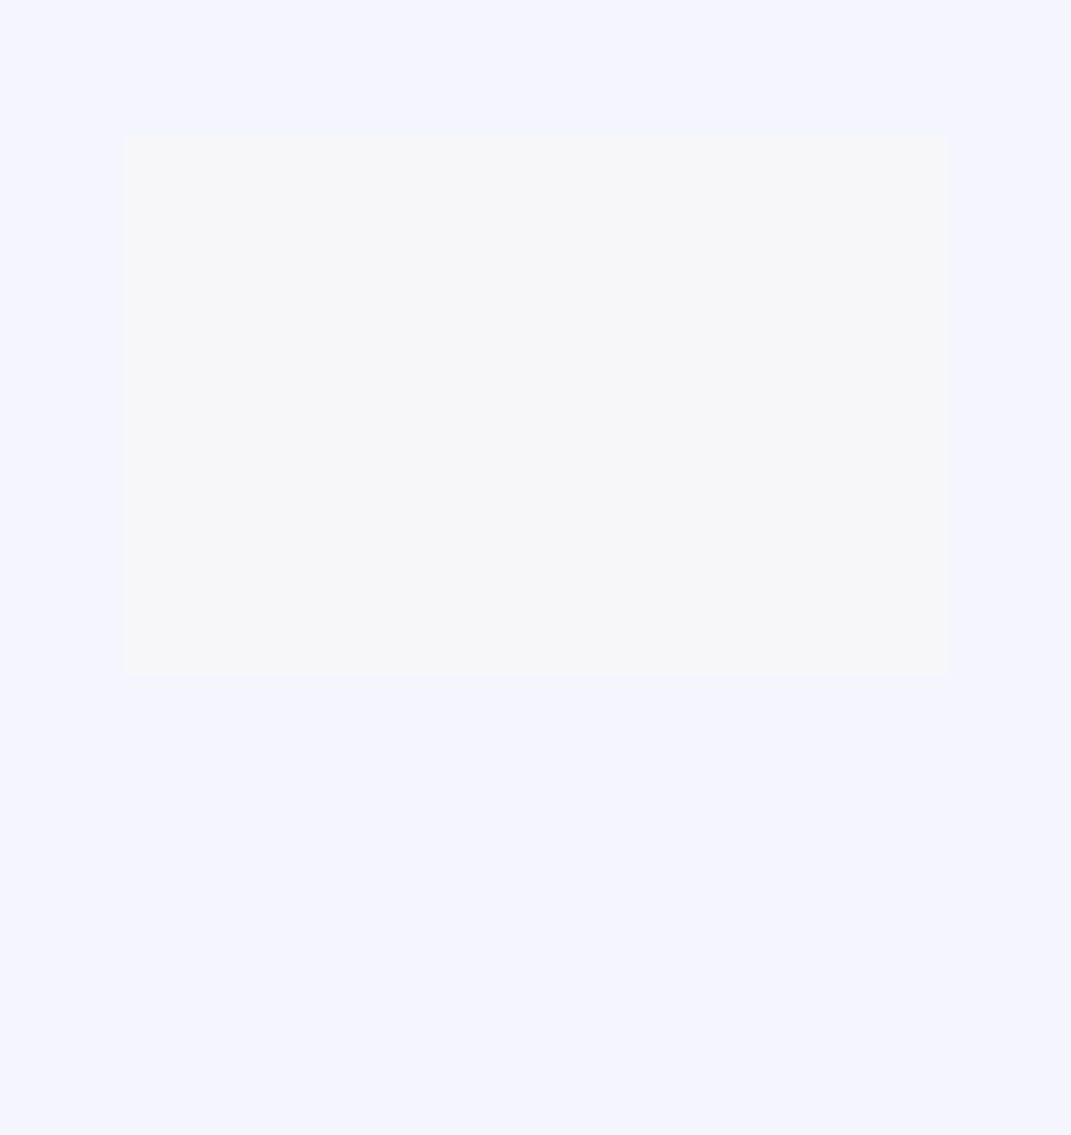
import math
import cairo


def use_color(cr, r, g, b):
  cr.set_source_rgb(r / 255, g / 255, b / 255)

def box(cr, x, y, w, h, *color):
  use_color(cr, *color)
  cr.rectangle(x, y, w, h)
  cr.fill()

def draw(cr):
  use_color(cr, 245, 245, 253)
  cr.paint()
  box(cr, 126, 136, 820, 540, 247, 247, 249)


surface = cairo.ImageSurface(cairo.FORMAT_RGB24, 1071, 1135)
cr = cairo.Context(surface)
options = cairo.FontOptions()
options.set_hint_metrics(cairo.HINT_METRICS_OFF)
options.set_hint_style(cairo.HINT_STYLE_NONE)
cr.set_font_options(options)
cr.set_miter_limit(4)
draw(cr)
surface.write_to_png("out.png")
